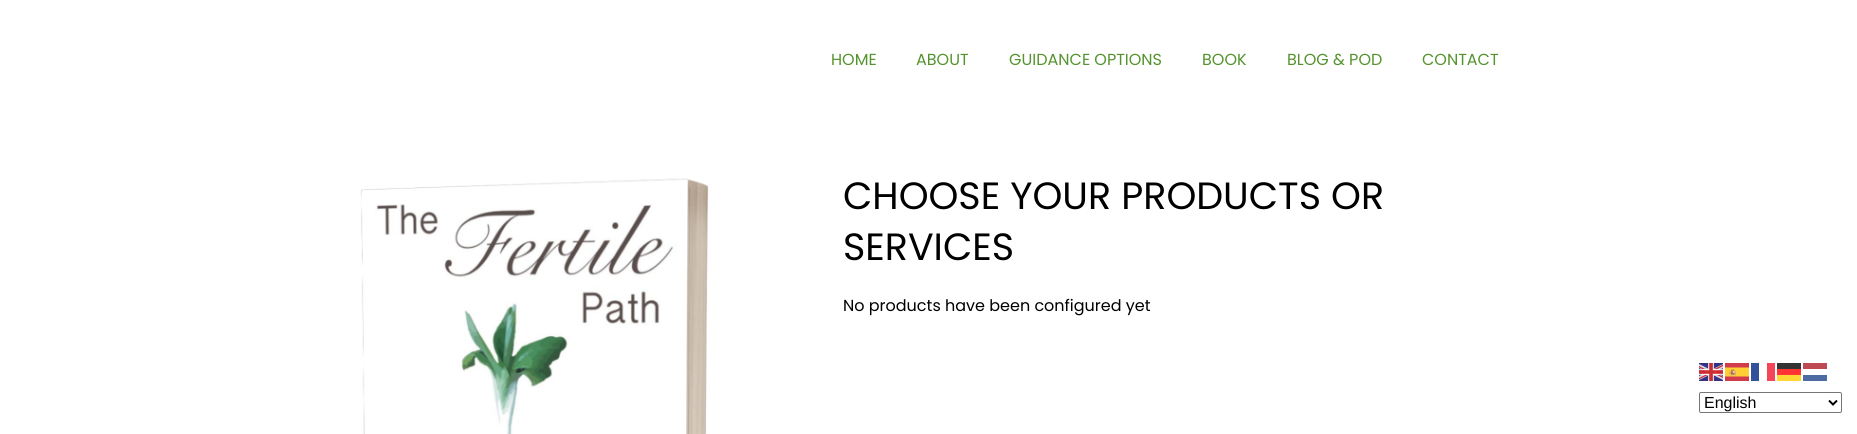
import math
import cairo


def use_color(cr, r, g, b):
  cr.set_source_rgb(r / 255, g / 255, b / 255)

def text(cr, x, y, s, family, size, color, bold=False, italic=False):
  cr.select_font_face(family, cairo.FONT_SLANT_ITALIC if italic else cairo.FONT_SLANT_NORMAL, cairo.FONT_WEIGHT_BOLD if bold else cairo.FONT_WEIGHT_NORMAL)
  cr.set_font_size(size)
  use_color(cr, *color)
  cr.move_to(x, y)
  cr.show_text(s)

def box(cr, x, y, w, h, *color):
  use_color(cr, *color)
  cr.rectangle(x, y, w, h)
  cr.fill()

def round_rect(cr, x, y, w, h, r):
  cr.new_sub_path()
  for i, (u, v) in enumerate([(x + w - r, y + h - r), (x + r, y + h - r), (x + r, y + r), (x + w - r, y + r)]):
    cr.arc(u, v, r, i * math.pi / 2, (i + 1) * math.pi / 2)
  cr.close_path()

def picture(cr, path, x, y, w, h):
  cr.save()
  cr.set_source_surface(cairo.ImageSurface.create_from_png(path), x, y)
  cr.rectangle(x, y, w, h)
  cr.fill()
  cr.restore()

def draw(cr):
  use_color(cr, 255, 255, 255)
  cr.paint()
  picture(cr, "img_01.png", 360, 178, 349, 256)
  picture(cr, "img_02.png", 1699, 363, 24, 18)
  picture(cr, "img_03.png", 1725, 363, 24, 18)
  box(cr, 1751, 363, 8, 18, 51, 81, 153)
  box(cr, 1767, 363, 8, 18, 245, 70, 89)
  box(cr, 1777, 363, 24, 6, 51, 51, 51)
  box(cr, 1803, 363, 24, 6, 190, 73, 83)
  box(cr, 1777, 369, 24, 6, 255, 51, 51)
  box(cr, 1777, 375, 24, 6, 255, 214, 51)
  box(cr, 1803, 375, 24, 6, 77, 107, 162)
  round_rect(cr, 1699.5, 392.5, 142, 20, 1.5)
  use_color(cr, 118, 118, 118)
  cr.set_line_width(1)
  cr.stroke()
  cr.new_path()
  cr.move_to(1829, 400.5)
  cr.line_to(1833, 404.5)
  cr.line_to(1837, 400.5)
  use_color(cr, 0, 0, 0)
  cr.set_line_width(2)
  cr.stroke()
  text(cr, 831, 65, "HOME", "Poppins", 16, (84, 147, 45))
  text(cr, 916, 65, "ABOUT", "Poppins", 16, (84, 147, 45))
  text(cr, 1009, 65, "GUIDANCE OPTIONS", "Poppins", 16, (84, 147, 45))
  text(cr, 1202, 65, "BOOK", "Poppins", 16, (84, 147, 45))
  text(cr, 1287, 65, "BLOG & POD", "Poppins", 16, (84, 147, 45))
  text(cr, 1422, 65, "CONTACT", "Poppins", 16, (84, 147, 45))
  text(cr, 843, 209, "CHOOSE YOUR PRODUCTS OR", "Poppins", 38, (0, 0, 0))
  text(cr, 843, 260, "SERVICES", "Poppins", 38, (0, 0, 0))
  text(cr, 843, 311, "No products have been configured yet", "Poppins", 16, (0, 0, 0))
  text(cr, 1704, 408, "English", "Liberation Sans", 16, (0, 0, 0))


surface = cairo.ImageSurface(cairo.FORMAT_RGB24, 1857, 434)
cr = cairo.Context(surface)
options = cairo.FontOptions()
options.set_hint_metrics(cairo.HINT_METRICS_OFF)
options.set_hint_style(cairo.HINT_STYLE_NONE)
cr.set_font_options(options)
cr.set_miter_limit(4)
draw(cr)
surface.write_to_png("out.png")
